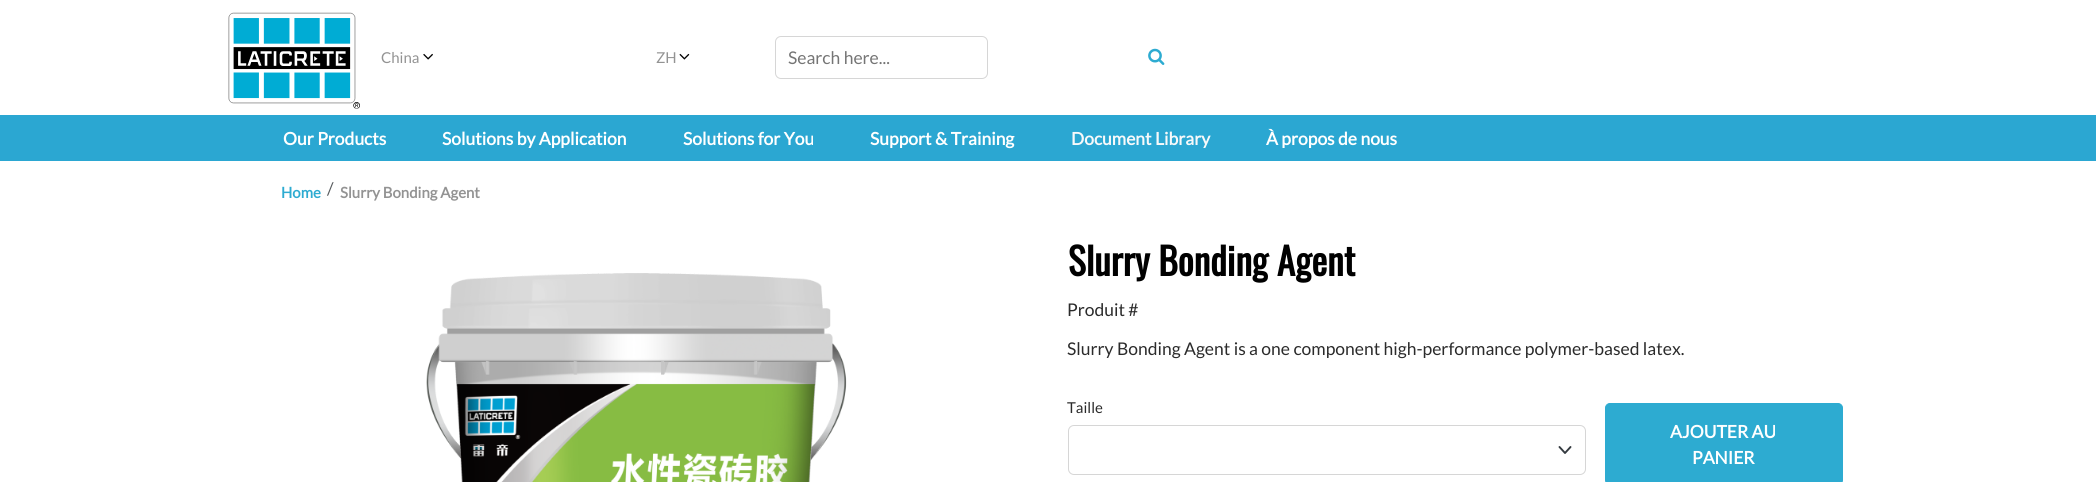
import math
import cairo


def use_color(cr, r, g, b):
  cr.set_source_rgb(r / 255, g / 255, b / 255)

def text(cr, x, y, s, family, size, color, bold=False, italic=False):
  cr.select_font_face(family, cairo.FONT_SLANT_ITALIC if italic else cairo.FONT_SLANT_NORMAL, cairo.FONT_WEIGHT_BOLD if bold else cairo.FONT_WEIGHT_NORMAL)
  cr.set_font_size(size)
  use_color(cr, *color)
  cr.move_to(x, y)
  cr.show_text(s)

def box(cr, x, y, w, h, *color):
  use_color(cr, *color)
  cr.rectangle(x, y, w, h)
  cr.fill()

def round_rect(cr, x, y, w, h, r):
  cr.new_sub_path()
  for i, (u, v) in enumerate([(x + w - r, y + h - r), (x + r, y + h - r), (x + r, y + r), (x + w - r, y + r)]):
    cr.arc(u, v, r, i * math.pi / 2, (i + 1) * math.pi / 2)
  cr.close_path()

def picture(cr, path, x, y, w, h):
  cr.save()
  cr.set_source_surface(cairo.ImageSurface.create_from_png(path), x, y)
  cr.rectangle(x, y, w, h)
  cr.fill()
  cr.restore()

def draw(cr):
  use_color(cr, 255, 255, 255)
  cr.paint()
  picture(cr, "img_01.png", 228, 12, 132, 97)
  picture(cr, "img_02.png", 423, 53, 10, 7)
  picture(cr, "img_03.png", 679, 53, 11, 7)
  round_rect(cr, 775.5, 36.5, 212, 42, 5.5)
  use_color(cr, 214, 214, 214)
  cr.set_line_width(1)
  cr.stroke()
  picture(cr, "img_04.png", 1148, 48, 17, 17)
  box(cr, 0, 115, 2096, 46, 43, 167, 210)
  picture(cr, "img_05.png", 426, 273, 421, 209)
  cr.new_path()
  cr.move_to(1559.5, 447)
  cr.line_to(1565, 453)
  cr.line_to(1570.5, 447)
  use_color(cr, 52, 58, 64)
  cr.set_line_width(1.9)
  cr.set_line_cap(cairo.LINE_CAP_ROUND)
  cr.set_line_join(cairo.LINE_JOIN_ROUND)
  cr.stroke()
  round_rect(cr, 1068.5, 425.5, 517, 49, 5.5)
  use_color(cr, 214, 214, 214)
  cr.set_line_width(1)
  cr.set_line_cap(cairo.LINE_CAP_BUTT)
  cr.set_line_join(cairo.LINE_JOIN_MITER)
  cr.stroke()
  use_color(cr, 45, 171, 209)
  round_rect(cr, 1605.5, 403.5, 237, 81, 4.5)
  cr.fill_preserve()
  cr.stroke()
  text(cr, 381, 63, "China", "Lato", 15, (147, 147, 147))
  text(cr, 656, 63, "ZH", "Lato", 15, (147, 147, 147))
  text(cr, 788, 64, "Search here...", "Lato", 17.5, (117, 117, 117))
  text(cr, 283, 145, "Our Products", "Lato", 17.5, (255, 255, 255), bold=True)
  text(cr, 442, 145, "Solutions by Application", "Lato", 17.5, (255, 255, 255), bold=True)
  text(cr, 683, 145, "Solutions for You", "Lato", 17.5, (255, 255, 255), bold=True)
  text(cr, 870, 145, "Support & Training", "Lato", 17.5, (255, 255, 255), bold=True)
  text(cr, 1071, 145, "Document Library", "Lato", 17.5, (248, 249, 250), bold=True)
  text(cr, 1266, 145, "À propos de nous", "Lato", 17.5, (255, 255, 255), bold=True)
  text(cr, 281, 198, "Home", "Lato", 15, (45, 171, 209), bold=True)
  text(cr, 327, 195, "/", "Lato", 17.5, (89, 92, 95))
  text(cr, 340, 198, "Slurry Bonding Agent", "Lato", 15, (147, 147, 147), bold=True)
  text(cr, 1068, 276, "Slurry Bonding Agent", "Oswald", 37.5, (0, 0, 0), bold=True)
  text(cr, 1067, 316, "Produit #", "Lato", 17.5, (43, 43, 43))
  text(cr, 1067, 355, "Slurry Bonding Agent is a one component high-performance polymer-based latex.", "Lato", 17.5, (43, 43, 43))
  text(cr, 1067, 413, "Taille", "Lato", 15, (43, 43, 43))
  text(cr, 1670, 438, "AJOUTER AU", "Lato", 17.5, (255, 255, 255), bold=True)
  text(cr, 1692, 464, "PANIER", "Lato", 17.5, (255, 255, 255), bold=True)


surface = cairo.ImageSurface(cairo.FORMAT_RGB24, 2096, 482)
cr = cairo.Context(surface)
options = cairo.FontOptions()
options.set_hint_metrics(cairo.HINT_METRICS_OFF)
options.set_hint_style(cairo.HINT_STYLE_NONE)
cr.set_font_options(options)
cr.set_miter_limit(4)
draw(cr)
surface.write_to_png("out.png")
